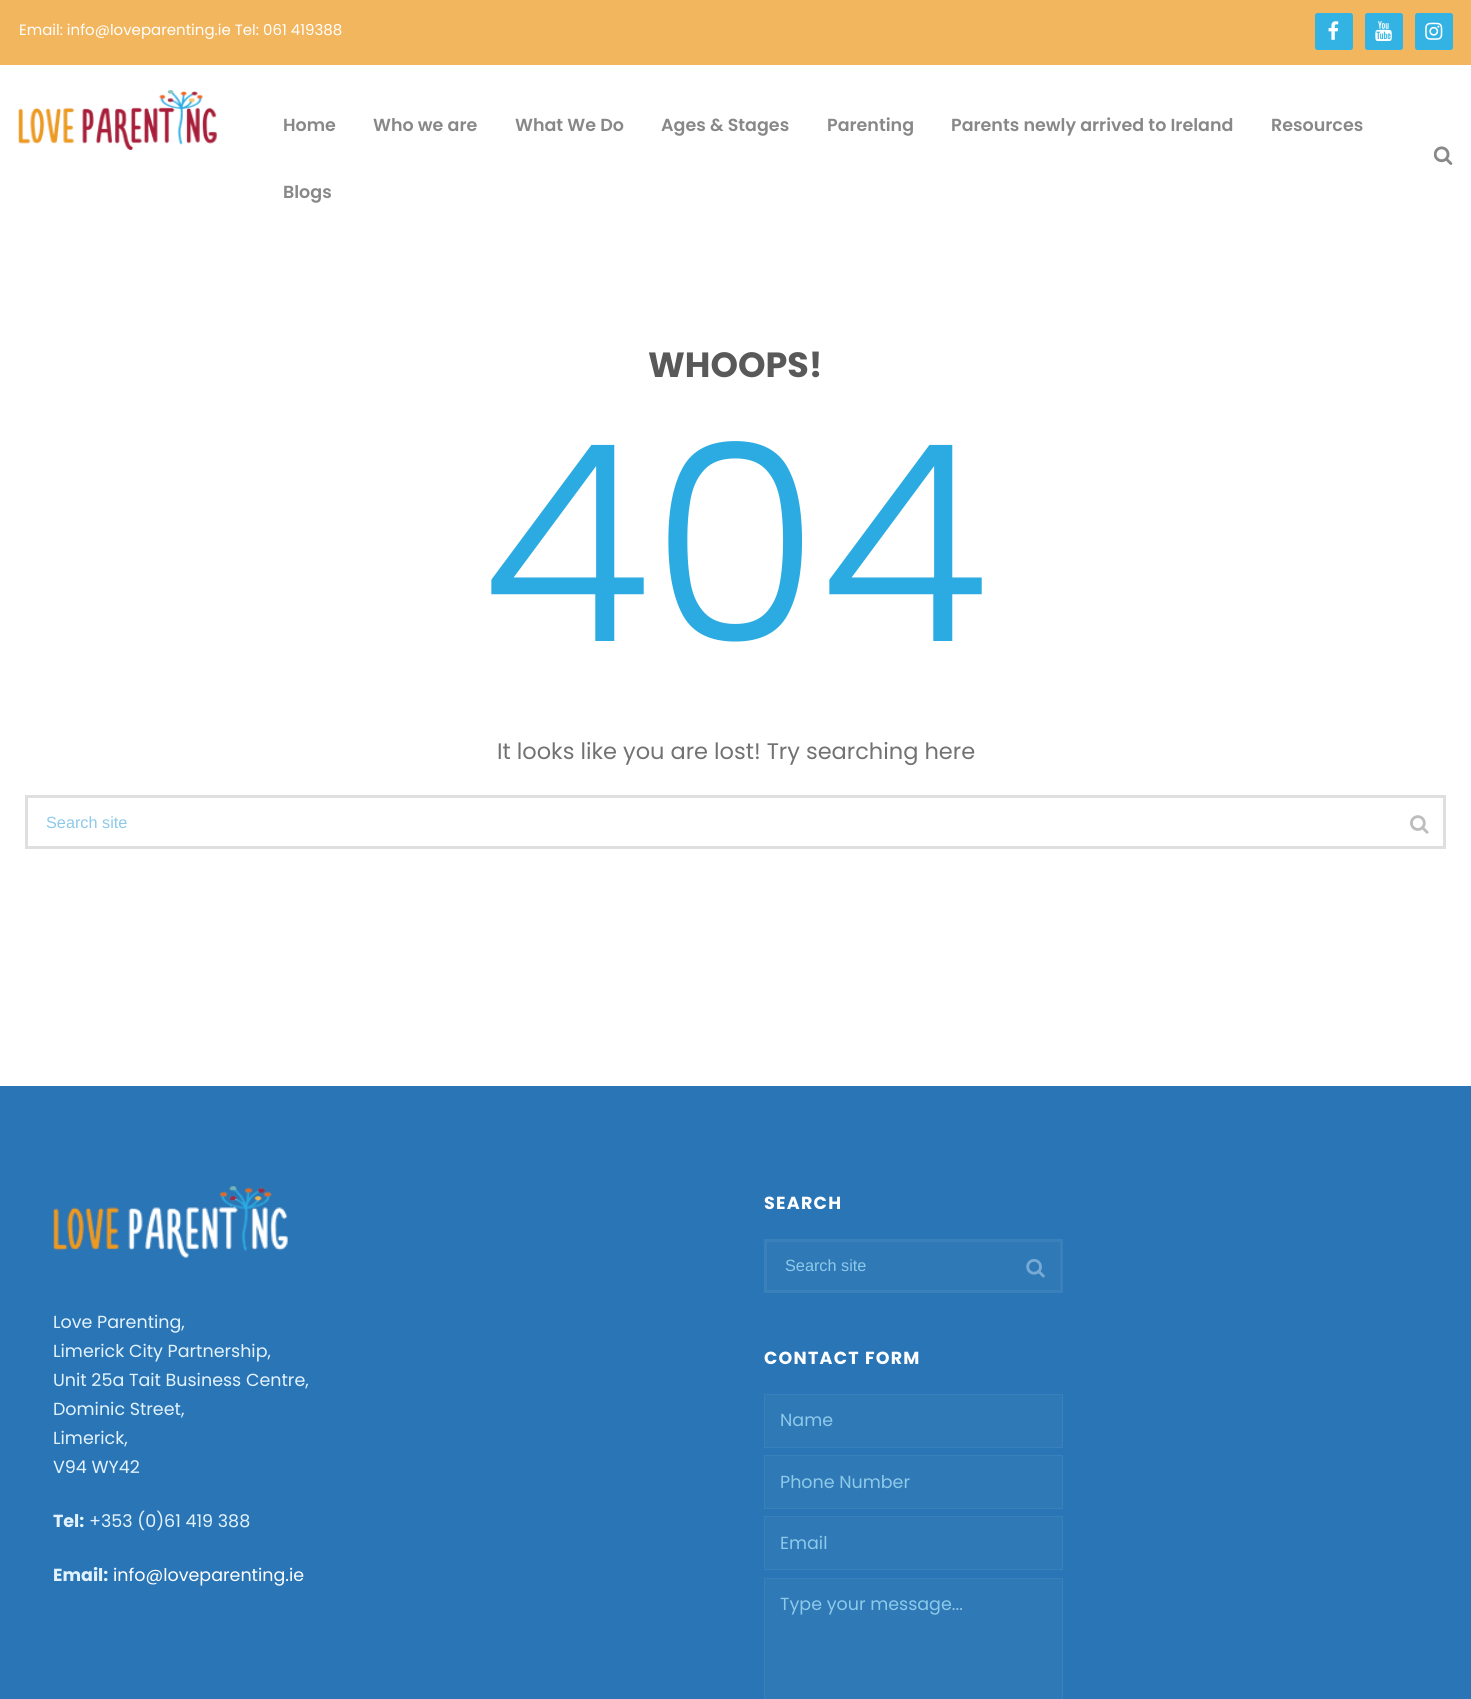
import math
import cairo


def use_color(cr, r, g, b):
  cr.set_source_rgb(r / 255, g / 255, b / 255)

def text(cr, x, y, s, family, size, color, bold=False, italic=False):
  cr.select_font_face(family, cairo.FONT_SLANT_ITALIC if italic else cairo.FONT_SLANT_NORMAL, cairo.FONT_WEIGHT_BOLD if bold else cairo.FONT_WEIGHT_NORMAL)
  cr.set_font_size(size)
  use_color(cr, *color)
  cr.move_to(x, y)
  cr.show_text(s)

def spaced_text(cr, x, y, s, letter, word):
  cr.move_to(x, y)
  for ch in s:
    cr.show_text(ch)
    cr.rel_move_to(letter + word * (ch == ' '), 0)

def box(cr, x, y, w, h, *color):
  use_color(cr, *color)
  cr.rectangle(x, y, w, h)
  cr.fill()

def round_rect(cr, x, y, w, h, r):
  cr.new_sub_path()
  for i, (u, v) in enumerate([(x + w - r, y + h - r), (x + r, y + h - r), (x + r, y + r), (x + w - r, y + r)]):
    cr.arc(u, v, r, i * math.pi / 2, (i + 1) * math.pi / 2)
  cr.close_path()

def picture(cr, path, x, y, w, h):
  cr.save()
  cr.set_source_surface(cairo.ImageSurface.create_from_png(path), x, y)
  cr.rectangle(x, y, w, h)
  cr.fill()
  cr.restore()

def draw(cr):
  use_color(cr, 255, 255, 255)
  cr.paint()
  box(cr, 0, 0, 1471, 65, 242, 182, 94)
  use_color(cr, 51, 179, 228)
  round_rect(cr, 1315, 13, 38, 37, 2.5)
  cr.fill()
  picture(cr, "img_01.png", 1328, 21, 11, 19)
  round_rect(cr, 1365, 13, 38, 37, 2.5)
  cr.fill()
  picture(cr, "img_02.png", 1375, 21, 17, 20)
  round_rect(cr, 1415, 13, 38, 37, 2.5)
  cr.fill()
  picture(cr, "img_03.png", 1425, 22, 18, 18)
  picture(cr, "img_04.png", 18, 90, 199, 60)
  picture(cr, "img_05.png", 1434, 146, 19, 19)
  cr.rectangle(26.5, 796.5, 1418, 51)
  use_color(cr, 223, 223, 223)
  cr.set_line_width(3)
  cr.stroke()
  picture(cr, "img_06.png", 1410, 815, 19, 19)
  box(cr, 0, 1086, 1471, 613, 42, 117, 181)
  picture(cr, "img_07.png", 53, 1186, 235, 72)
  use_color(cr, 48, 121, 183)
  cr.rectangle(765.5, 1240.5, 296, 51)
  cr.fill_preserve()
  use_color(cr, 58, 128, 187)
  cr.stroke()
  picture(cr, "img_08.png", 1026, 1259, 19, 19)
  use_color(cr, 48, 121, 183)
  cr.rectangle(764.5, 1394.5, 298, 53)
  cr.fill_preserve()
  use_color(cr, 58, 128, 187)
  cr.set_line_width(1)
  cr.stroke()
  use_color(cr, 48, 121, 183)
  cr.rectangle(764.5, 1455.5, 298, 53)
  cr.fill_preserve()
  use_color(cr, 58, 128, 187)
  cr.stroke()
  use_color(cr, 48, 121, 183)
  cr.rectangle(764.5, 1516.5, 298, 53)
  cr.fill_preserve()
  use_color(cr, 58, 128, 187)
  cr.stroke()
  use_color(cr, 48, 121, 183)
  cr.rectangle(764.5, 1578.5, 298, 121)
  cr.fill_preserve()
  use_color(cr, 58, 128, 187)
  cr.stroke()
  text(cr, 19, 35, "Email: info@loveparenting.ie Tel: 061 419388", "Poppins", 15, (255, 255, 255))
  text(cr, 283, 131, "Home", "Poppins SemiBold", 17.5, (136, 136, 136))
  text(cr, 373, 131, "Who we are", "Poppins SemiBold", 17.5, (136, 136, 136))
  text(cr, 515, 131, "What We Do", "Poppins SemiBold", 17.5, (136, 136, 136))
  text(cr, 661, 131, "Ages & Stages", "Poppins SemiBold", 17.5, (136, 136, 136))
  text(cr, 827, 131, "Parenting", "Poppins SemiBold", 17.5, (136, 136, 136))
  text(cr, 951, 131, "Parents newly arrived to Ireland", "Poppins SemiBold", 17.5, (136, 136, 136))
  text(cr, 1271, 131, "Resources", "Poppins SemiBold", 17.5, (136, 136, 136))
  text(cr, 283, 198, "Blogs", "Poppins SemiBold", 17.5, (136, 136, 136))
  text(cr, 648, 377, "WHOOPS!", "Poppins", 35, (89, 89, 89), bold=True)
  text(cr, 482, 641, "404", "Poppins Light", 275, (43, 171, 225))
  text(cr, 497, 759, "It looks like you are lost! Try searching here", "Poppins", 22.5, (114, 114, 114))
  text(cr, 46, 828, "Search site", "Liberation Sans", 16.25, (141, 202, 233))
  text(cr, 53, 1328, "Love Parenting,", "Poppins", 17.5, (226, 243, 255))
  text(cr, 53, 1357, "Limerick City Partnership,", "Poppins", 17.5, (226, 243, 255))
  text(cr, 53, 1386, "Unit 25a Tait Business Centre,", "Poppins", 17.5, (226, 243, 255))
  text(cr, 53, 1415, "Dominic Street,", "Poppins", 17.5, (226, 243, 255))
  text(cr, 53, 1444, "Limerick,", "Poppins", 17.5, (226, 243, 255))
  text(cr, 53, 1473, "V94 WY42", "Poppins", 17.5, (226, 243, 255))
  text(cr, 53, 1527, "Tel:", "Poppins", 17.5, (226, 243, 255), bold=True)
  text(cr, 89, 1527, "+353 (0)61 419 388", "Poppins", 17.5, (226, 243, 255))
  text(cr, 53, 1581, "Email:", "Poppins", 17.5, (226, 243, 255), bold=True)
  text(cr, 113, 1581, "info@loveparenting.ie", "Poppins", 17.5, (255, 255, 255))
  cr.select_font_face("Poppins", cairo.FONT_SLANT_NORMAL, cairo.FONT_WEIGHT_BOLD)
  spaced_text(cr, 764, 1209, "SEARCH", 1.25, 0)
  text(cr, 785, 1271, "Search site", "Liberation Sans", 16.25, (141, 202, 233))
  cr.select_font_face("Poppins", cairo.FONT_SLANT_NORMAL, cairo.FONT_WEIGHT_BOLD)
  cr.set_font_size(17.5)
  use_color(cr, 255, 255, 255)
  spaced_text(cr, 764, 1364, "CONTACT FORM", 1.25, 0)
  text(cr, 780, 1426, "Name", "Poppins", 17.5, (141, 202, 233))
  text(cr, 780, 1488, "Phone Number", "Poppins", 17.5, (141, 202, 233))
  text(cr, 780, 1549, "Email", "Poppins", 17.5, (141, 202, 233))
  text(cr, 780, 1610, "Type your message...", "Poppins", 17.5, (141, 202, 233))


surface = cairo.ImageSurface(cairo.FORMAT_RGB24, 1471, 1699)
cr = cairo.Context(surface)
options = cairo.FontOptions()
options.set_hint_metrics(cairo.HINT_METRICS_OFF)
options.set_hint_style(cairo.HINT_STYLE_NONE)
cr.set_font_options(options)
cr.set_miter_limit(4)
draw(cr)
surface.write_to_png("out.png")
